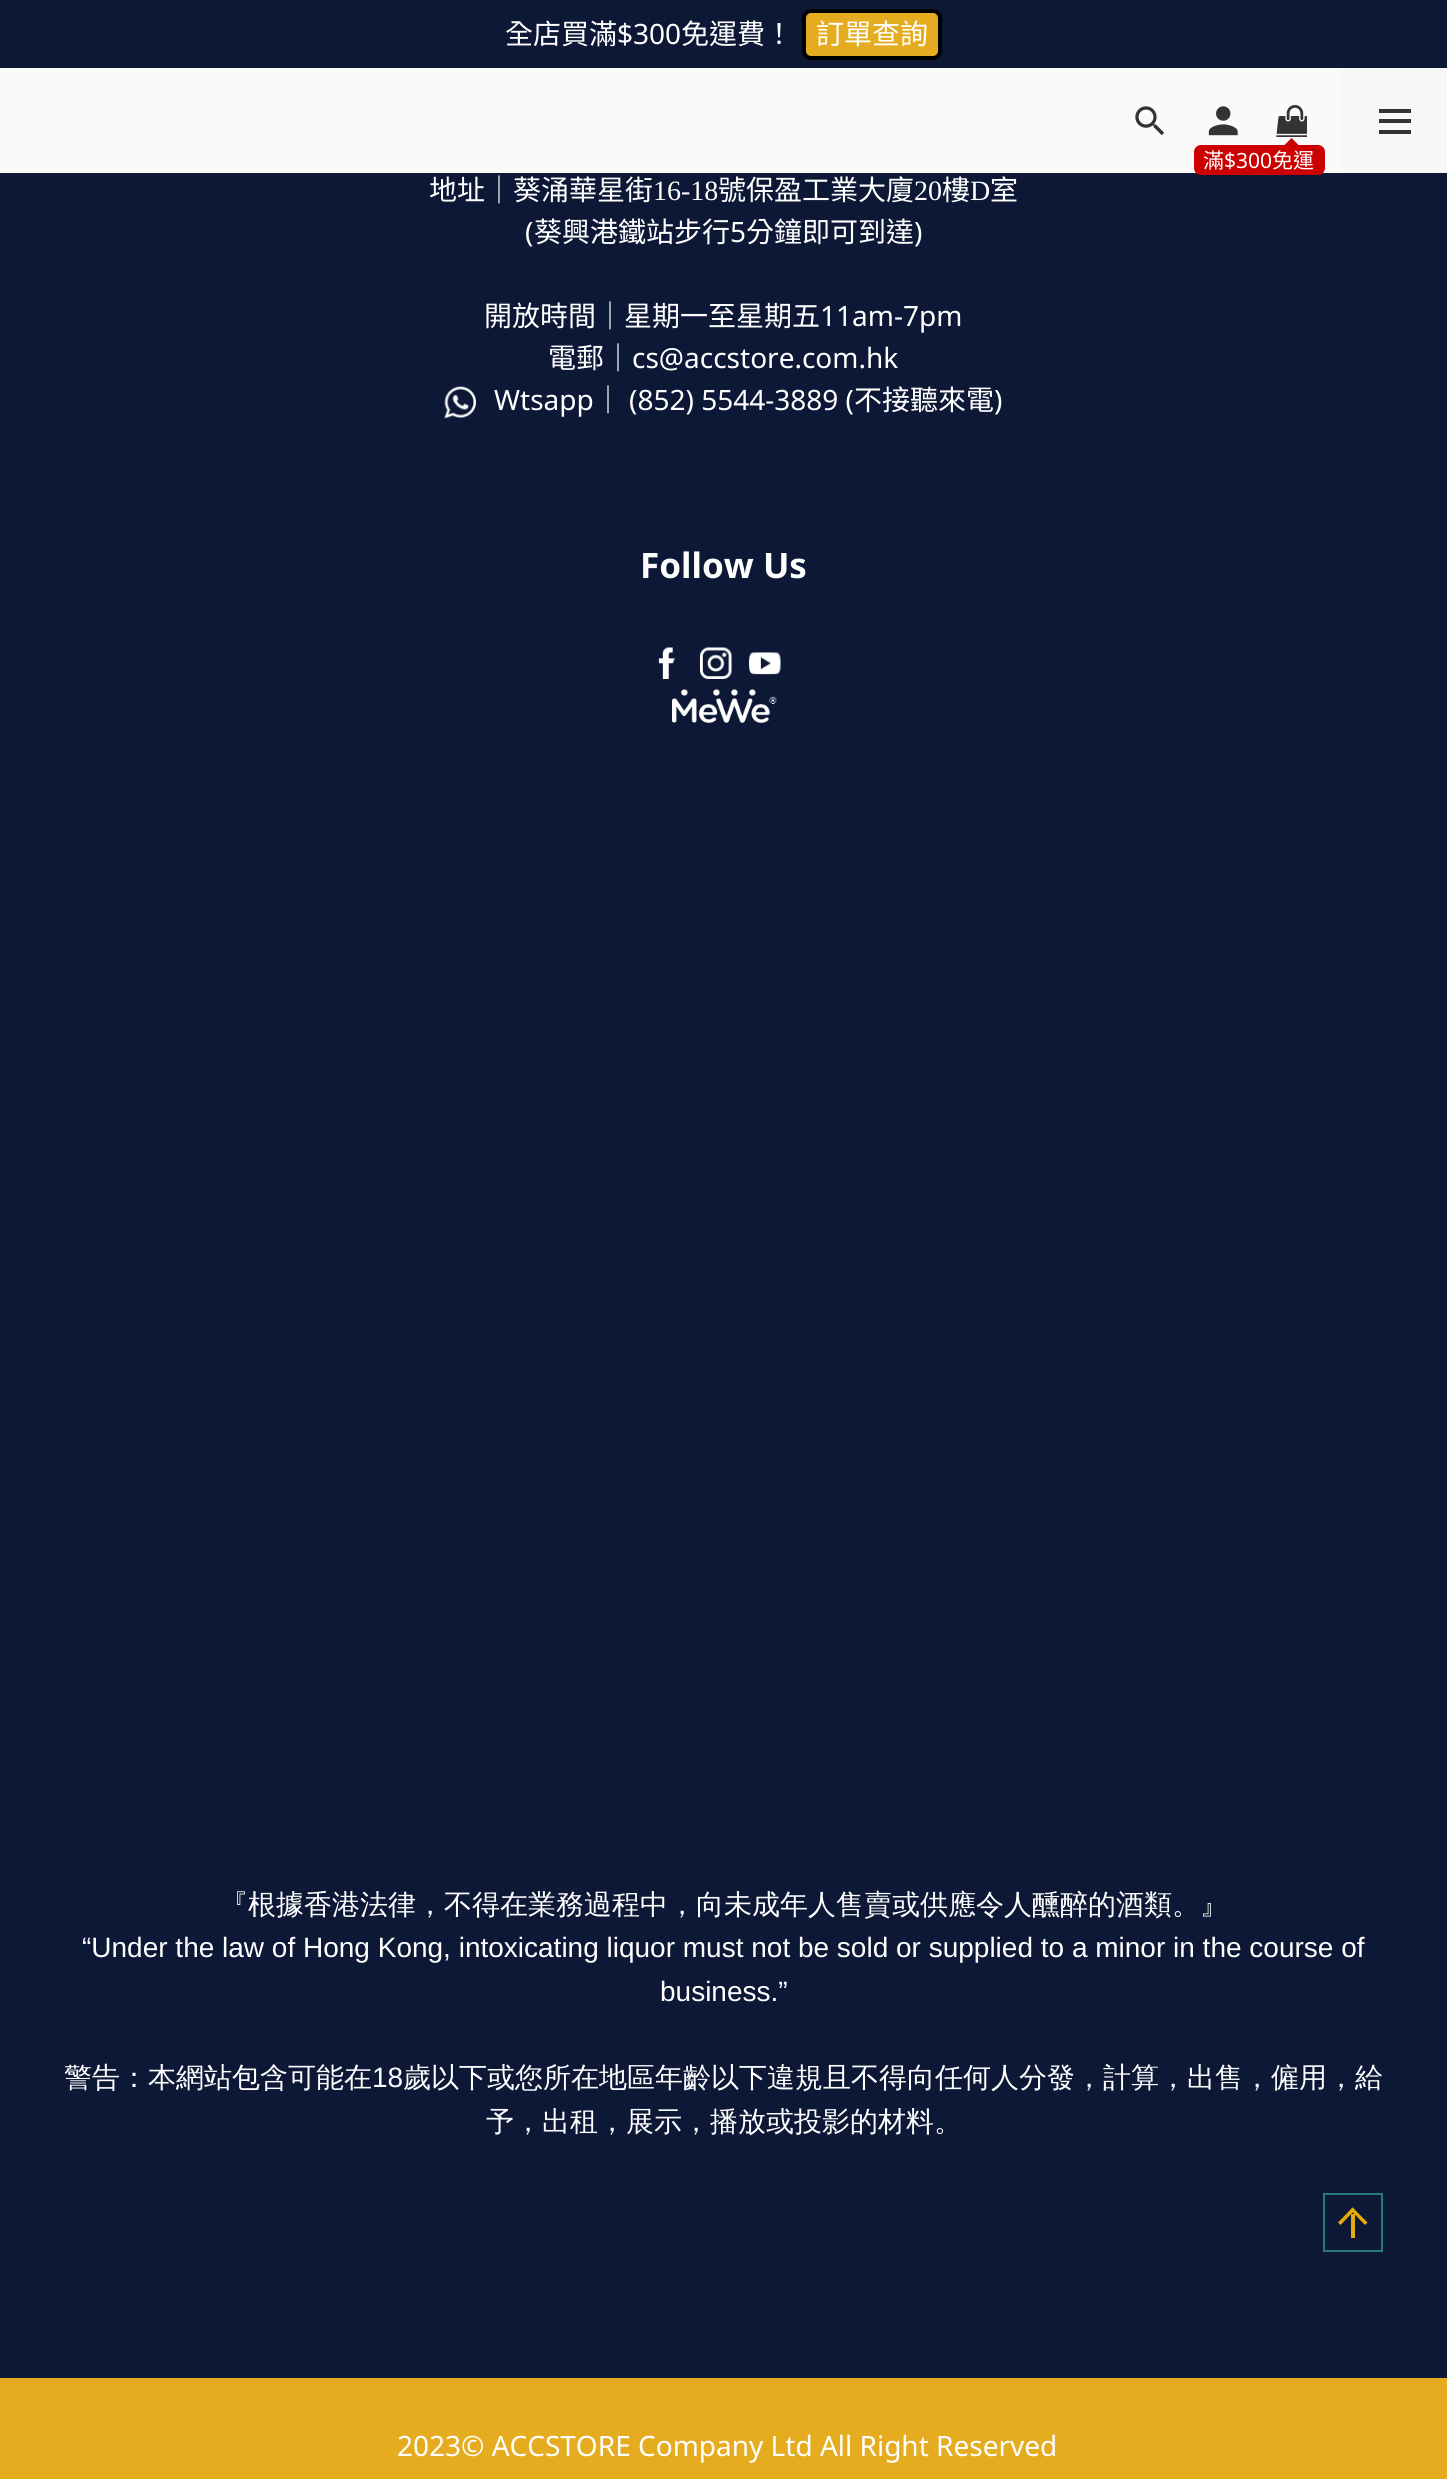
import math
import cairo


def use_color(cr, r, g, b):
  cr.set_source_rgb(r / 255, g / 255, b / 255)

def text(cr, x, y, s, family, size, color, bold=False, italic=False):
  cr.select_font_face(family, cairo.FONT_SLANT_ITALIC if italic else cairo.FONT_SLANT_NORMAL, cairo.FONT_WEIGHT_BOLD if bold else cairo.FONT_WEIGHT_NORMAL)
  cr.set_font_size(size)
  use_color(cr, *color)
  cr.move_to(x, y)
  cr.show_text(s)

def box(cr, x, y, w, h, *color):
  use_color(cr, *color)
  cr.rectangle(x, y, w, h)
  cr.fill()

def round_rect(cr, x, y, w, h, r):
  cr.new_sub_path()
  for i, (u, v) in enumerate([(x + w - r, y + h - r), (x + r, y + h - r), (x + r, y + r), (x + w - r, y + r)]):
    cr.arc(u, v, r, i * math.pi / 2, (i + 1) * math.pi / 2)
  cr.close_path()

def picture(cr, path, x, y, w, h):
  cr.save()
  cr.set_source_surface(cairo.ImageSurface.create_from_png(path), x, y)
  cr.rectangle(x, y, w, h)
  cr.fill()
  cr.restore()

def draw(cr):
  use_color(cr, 12, 24, 53)
  cr.paint()
  use_color(cr, 229, 172, 31)
  round_rect(cr, 804, 11, 136, 47, 7)
  cr.fill_preserve()
  use_color(cr, 0, 0, 0)
  cr.set_line_width(4)
  cr.stroke()
  box(cr, 0, 68, 1342, 105, 250, 250, 251)
  picture(cr, "img_01.png", 1135, 106, 30, 30)
  picture(cr, "img_02.png", 1208, 106, 30, 30)
  box(cr, 1342, 68, 105, 105, 247, 247, 247)
  box(cr, 1379, 119, 32, 4, 51, 51, 51)
  box(cr, 1379, 109, 32, 4, 51, 51, 51)
  box(cr, 1379, 130, 32, 4, 51, 51, 51)
  picture(cr, "img_03.png", 1276, 105, 31, 32)
  use_color(cr, 204, 0, 0)
  round_rect(cr, 1194, 145, 131, 30, 7)
  cr.fill()
  cr.new_path()
  cr.move_to(1298.5, 145)
  cr.line_to(1284.5, 145)
  cr.line_to(1291.5, 138)
  cr.close_path()
  cr.fill()
  picture(cr, "img_04.png", 444, 386, 32, 33)
  picture(cr, "img_05.png", 658, 647, 17, 32)
  picture(cr, "img_06.png", 700, 647, 32, 32)
  picture(cr, "img_07.png", 749, 652, 32, 23)
  picture(cr, "img_08.png", 672, 689, 105, 34)
  box(cr, 0, 2378, 1447, 101, 229, 172, 31)
  cr.rectangle(1324, 2194, 58, 57)
  use_color(cr, 36, 121, 127)
  cr.set_line_width(2)
  cr.stroke()
  use_color(cr, 230, 172, 8)
  cr.new_path()
  cr.move_to(1352.5, 2207.5)
  cr.line_to(1367.5, 2222.5)
  cr.line_to(1365, 2225)
  cr.line_to(1350.5, 2210)
  cr.close_path()
  cr.fill()
  cr.new_path()
  cr.move_to(1352.5, 2207.5)
  cr.line_to(1355, 2210)
  cr.line_to(1340.5, 2225)
  cr.line_to(1338, 2222.5)
  cr.close_path()
  cr.fill()
  box(cr, 1351, 2214, 4, 24, 230, 172, 8)
  text(cr, 505, 44, "全店買滿", "Noto Sans TC", 28, (255, 255, 255))
  text(cr, 617, 44, "$300", "Noto Sans", 28, (255, 255, 255))
  text(cr, 681, 44, "免運費！", "Noto Sans TC", 28, (255, 255, 255))
  text(cr, 816, 44, "訂單查詢", "Noto Sans TC", 28, (255, 255, 255))
  text(cr, 1203, 168, "滿", "Noto Sans TC", 21, (255, 255, 255))
  text(cr, 1224, 168, "$300", "Noto Sans", 21, (255, 255, 255))
  text(cr, 1272, 168, "免運", "Noto Sans TC", 21, (255, 255, 255))
  text(cr, 429, 200, "地址｜葵涌華星街", "Noto Sans TC", 28, (255, 255, 255))
  text(cr, 653, 200, "16-18", "Liberation Serif", 28, (255, 255, 255))
  text(cr, 718, 200, "號保盈工業大廈", "Noto Sans TC", 28, (255, 255, 255))
  text(cr, 914, 200, "20", "Liberation Serif", 28, (255, 255, 255))
  text(cr, 942, 200, "樓", "Noto Sans TC", 28, (255, 255, 255))
  text(cr, 970, 200, "D", "Liberation Serif", 28, (255, 255, 255))
  text(cr, 990, 200, "室", "Noto Sans TC", 28, (255, 255, 255))
  text(cr, 525, 242, "(", "Noto Sans", 28, (255, 255, 255))
  text(cr, 534, 242, "葵興港鐵站步行", "Noto Sans TC", 28, (255, 255, 255))
  text(cr, 730, 242, "5", "Noto Sans", 28, (255, 255, 255))
  text(cr, 746, 242, "分鐘即可到達", "Noto Sans TC", 28, (255, 255, 255))
  text(cr, 914, 242, ")", "Noto Sans", 28, (255, 255, 255))
  text(cr, 484, 326, "開放時間｜星期一至星期五", "Noto Sans TC", 28, (255, 255, 255))
  text(cr, 820, 326, "11am-7pm", "Noto Sans", 28, (255, 255, 255))
  text(cr, 548, 368, "電郵｜", "Noto Sans TC", 28, (255, 255, 255))
  text(cr, 632, 368, "cs@accstore.com.hk", "Noto Sans", 28, (255, 255, 255))
  text(cr, 494, 410, "Wtsapp", "Noto Sans", 28, (255, 255, 255))
  text(cr, 594, 410, "｜", "Noto Sans TC", 28, (255, 255, 255))
  text(cr, 629, 410, "(852) 5544-3889 (", "Noto Sans", 28, (255, 255, 255))
  text(cr, 854, 410, "不接聽來電", "Noto Sans TC", 28, (255, 255, 255))
  text(cr, 994, 410, ")", "Noto Sans", 28, (255, 255, 255))
  text(cr, 640, 578, "Follow Us", "Noto Sans", 35, (255, 255, 255), bold=True)
  text(cr, 220, 1914, "『根據香港法律，不得在業務過程中，向未成年人售賣或供應令人醺醉的酒類。』", "WenQuanYi Zen Hei Medium", 28, (255, 255, 255))
  text(cr, 82, 1957, "“Under the law of Hong Kong, intoxicating liquor must not be sold or supplied to a minor in the course of", "Liberation Sans", 28, (255, 255, 255))
  text(cr, 660, 2001, "business.”", "Liberation Sans", 28, (255, 255, 255))
  text(cr, 64, 2087, "警告：本網站包含可能在", "WenQuanYi Zen Hei Medium", 28, (255, 255, 255))
  text(cr, 372, 2087, "18", "Liberation Sans", 28, (255, 255, 255))
  text(cr, 403, 2087, "歲以下或您所在地區年齡以下違規且不得向任何人分發，計算，出售，僱用，給", "WenQuanYi Zen Hei Medium", 28, (255, 255, 255))
  text(cr, 486, 2131, "予，出租，展示，播放或投影的材料。", "WenQuanYi Zen Hei Medium", 28, (255, 255, 255))
  text(cr, 397, 2456, "2023© ACCSTORE Company Ltd All Right Reserved", "Noto Sans", 28, (255, 255, 255))


surface = cairo.ImageSurface(cairo.FORMAT_RGB24, 1447, 2479)
cr = cairo.Context(surface)
options = cairo.FontOptions()
options.set_hint_metrics(cairo.HINT_METRICS_OFF)
options.set_hint_style(cairo.HINT_STYLE_NONE)
cr.set_font_options(options)
cr.set_miter_limit(4)
draw(cr)
surface.write_to_png("out.png")
